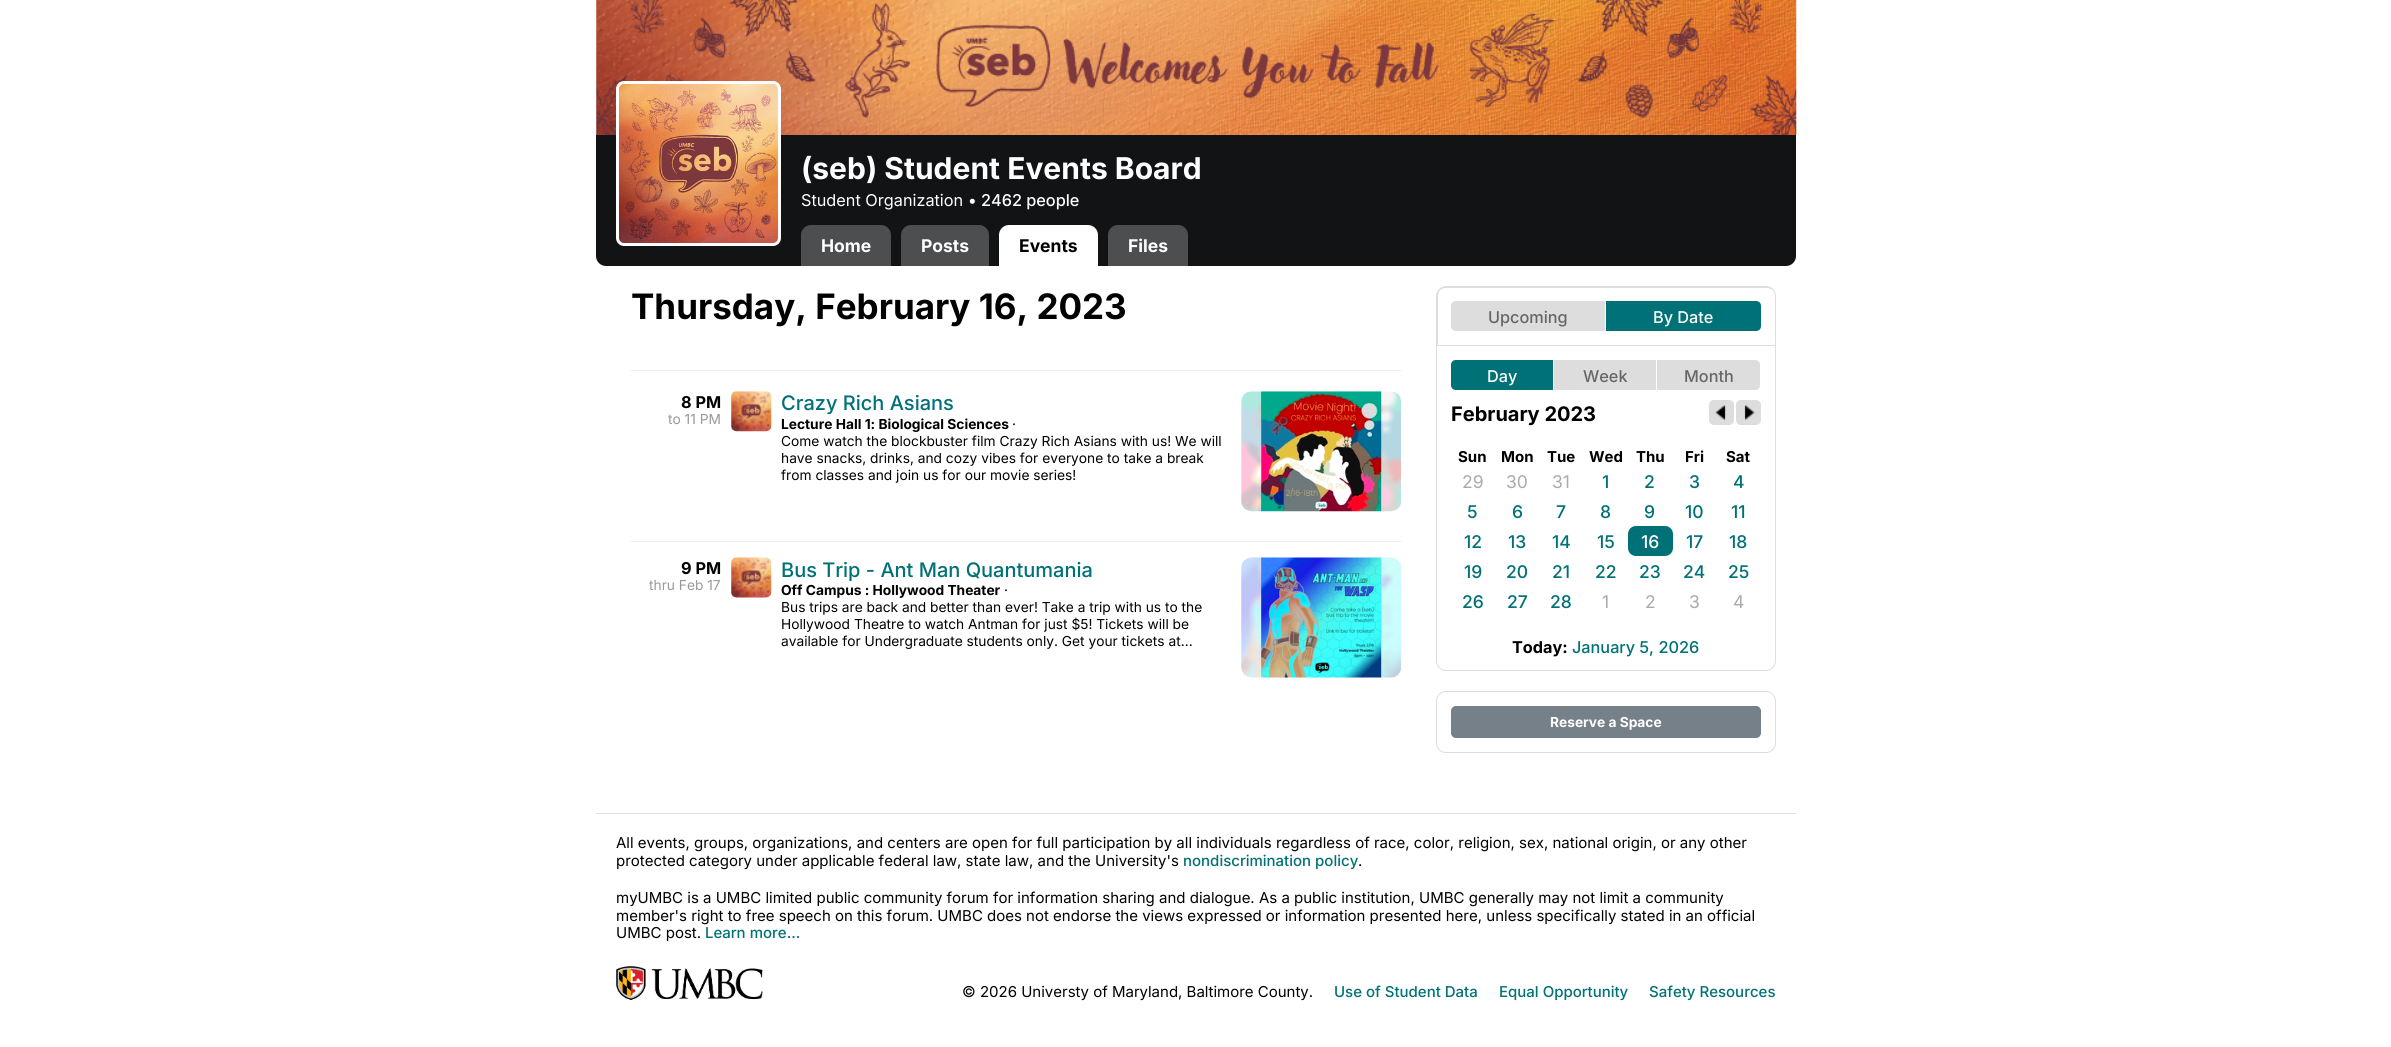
import math
import cairo


def use_color(cr, r, g, b):
  cr.set_source_rgb(r / 255, g / 255, b / 255)

def text(cr, x, y, s, family, size, color, bold=False, italic=False):
  cr.select_font_face(family, cairo.FONT_SLANT_ITALIC if italic else cairo.FONT_SLANT_NORMAL, cairo.FONT_WEIGHT_BOLD if bold else cairo.FONT_WEIGHT_NORMAL)
  cr.set_font_size(size)
  use_color(cr, *color)
  cr.move_to(x, y)
  cr.show_text(s)

def box(cr, x, y, w, h, *color):
  use_color(cr, *color)
  cr.rectangle(x, y, w, h)
  cr.fill()

def round_rect(cr, x, y, w, h, r):
  cr.new_sub_path()
  for i, (u, v) in enumerate([(x + w - r, y + h - r), (x + r, y + h - r), (x + r, y + r), (x + w - r, y + r)]):
    cr.arc(u, v, r, i * math.pi / 2, (i + 1) * math.pi / 2)
  cr.close_path()

def picture(cr, path, x, y, w, h):
  cr.save()
  cr.set_source_surface(cairo.ImageSurface.create_from_png(path), x, y)
  cr.rectangle(x, y, w, h)
  cr.fill()
  cr.restore()

def draw(cr):
  use_color(cr, 255, 255, 255)
  cr.paint()
  picture(cr, "img_01.png", 596, 0, 1201, 135)
  box(cr, 596, 135, 1200, 83, 17, 19, 21)
  cr.new_path()
  cr.move_to(596, 218)
  cr.line_to(1796, 218)
  cr.line_to(1796, 256)
  cr.curve_to(1796, 261.5, 1791.5, 266, 1786, 266)
  cr.line_to(606, 266)
  cr.curve_to(600.5, 266, 596, 261.5, 596, 256)
  cr.close_path()
  cr.fill()
  picture(cr, "img_02.png", 618, 83, 161, 161)
  round_rect(cr, 617.5, 82.5, 162, 162, 6.5)
  use_color(cr, 255, 255, 255)
  cr.set_line_width(3)
  cr.stroke()
  use_color(cr, 77, 78, 80)
  cr.new_path()
  cr.move_to(811, 225)
  cr.line_to(881, 225)
  cr.curve_to(886.5, 225, 891, 229.5, 891, 235)
  cr.line_to(891, 266)
  cr.line_to(801, 266)
  cr.line_to(801, 235)
  cr.curve_to(801, 229.5, 805.5, 225, 811, 225)
  cr.close_path()
  cr.fill()
  cr.new_path()
  cr.move_to(911, 225)
  cr.line_to(979, 225)
  cr.curve_to(984.5, 225, 989, 229.5, 989, 235)
  cr.line_to(989, 266)
  cr.line_to(901, 266)
  cr.line_to(901, 235)
  cr.curve_to(901, 229.5, 905.5, 225, 911, 225)
  cr.close_path()
  cr.fill()
  use_color(cr, 255, 255, 255)
  cr.new_path()
  cr.move_to(1009, 225)
  cr.line_to(1088, 225)
  cr.curve_to(1093.5, 225, 1098, 229.5, 1098, 235)
  cr.line_to(1098, 266)
  cr.line_to(999, 266)
  cr.line_to(999, 235)
  cr.curve_to(999, 229.5, 1003.5, 225, 1009, 225)
  cr.close_path()
  cr.fill()
  use_color(cr, 77, 78, 80)
  cr.new_path()
  cr.move_to(1118, 225)
  cr.line_to(1178, 225)
  cr.curve_to(1183.5, 225, 1188, 229.5, 1188, 235)
  cr.line_to(1188, 266)
  cr.line_to(1108, 266)
  cr.line_to(1108, 235)
  cr.curve_to(1108, 229.5, 1112.5, 225, 1118, 225)
  cr.close_path()
  cr.fill()
  box(cr, 631, 370, 770, 1, 238, 238, 238)
  picture(cr, "img_03.png", 731, 391, 41, 41)
  picture(cr, "img_04.png", 1241, 391, 161, 121)
  box(cr, 631, 541, 770, 1, 238, 238, 238)
  picture(cr, "img_05.png", 731, 557, 41, 41)
  picture(cr, "img_06.png", 1241, 557, 161, 121)
  use_color(cr, 221, 221, 221)
  cr.set_fill_rule(cairo.FILL_RULE_EVEN_ODD)
  cr.new_path()
  cr.move_to(1446, 286)
  cr.line_to(1766, 286)
  cr.curve_to(1772, 286, 1776, 291, 1776, 296)
  cr.line_to(1776, 345)
  cr.line_to(1436, 345)
  cr.line_to(1436, 296)
  cr.curve_to(1436, 291, 1441, 286, 1446, 286)
  cr.close_path()
  cr.move_to(1446, 288)
  cr.line_to(1766, 288)
  cr.curve_to(1771, 288, 1775, 291, 1775, 296)
  cr.line_to(1775, 345)
  cr.line_to(1438, 345)
  cr.line_to(1438, 296)
  cr.curve_to(1438, 291, 1441, 288, 1446, 288)
  cr.close_path()
  cr.fill()
  cr.new_path()
  cr.move_to(1456, 301)
  cr.line_to(1606, 301)
  cr.line_to(1606, 331)
  cr.line_to(1456, 331)
  cr.curve_to(1453, 331, 1451, 329, 1451, 326)
  cr.line_to(1451, 306)
  cr.curve_to(1451, 303, 1453, 301, 1456, 301)
  cr.close_path()
  cr.fill()
  box(cr, 1605, 301, 1, 30, 255, 255, 255)
  use_color(cr, 0, 113, 118)
  cr.new_path()
  cr.move_to(1606, 301)
  cr.line_to(1756, 301)
  cr.curve_to(1759, 301, 1761, 303, 1761, 306)
  cr.line_to(1761, 326)
  cr.curve_to(1761, 329, 1759, 331, 1756, 331)
  cr.line_to(1606, 331)
  cr.close_path()
  cr.fill()
  cr.new_path()
  cr.move_to(1436.5, 345.5)
  cr.line_to(1775.5, 345.5)
  cr.line_to(1775.5, 661)
  cr.curve_to(1775.5, 666, 1771, 670.5, 1766, 670.5)
  cr.line_to(1446, 670.5)
  cr.curve_to(1441, 670.5, 1436.5, 666, 1436.5, 661)
  cr.close_path()
  use_color(cr, 221, 221, 221)
  cr.set_line_width(1)
  cr.stroke()
  use_color(cr, 0, 113, 118)
  cr.new_path()
  cr.move_to(1456, 360)
  cr.line_to(1554, 360)
  cr.line_to(1554, 390)
  cr.line_to(1456, 390)
  cr.curve_to(1453, 390, 1451, 388, 1451, 385)
  cr.line_to(1451, 365)
  cr.curve_to(1451, 362, 1453, 360, 1456, 360)
  cr.close_path()
  cr.fill()
  box(cr, 1553, 360, 1, 30, 255, 255, 255)
  box(cr, 1554, 360, 104, 30, 221, 221, 221)
  box(cr, 1656, 360, 1, 30, 255, 255, 255)
  use_color(cr, 221, 221, 221)
  cr.new_path()
  cr.move_to(1658, 360)
  cr.line_to(1755, 360)
  cr.curve_to(1758, 360, 1760, 362, 1760, 365)
  cr.line_to(1760, 385)
  cr.curve_to(1760, 388, 1758, 390, 1755, 390)
  cr.line_to(1658, 390)
  cr.close_path()
  cr.fill()
  round_rect(cr, 1709, 400, 25, 25, 5)
  cr.fill()
  picture(cr, "img_07.png", 1715, 405, 11, 16)
  round_rect(cr, 1736, 400, 25, 25, 5)
  cr.fill()
  picture(cr, "img_08.png", 1744, 405, 11, 16)
  use_color(cr, 0, 113, 118)
  round_rect(cr, 1628, 526, 45, 30, 8)
  cr.fill()
  round_rect(cr, 1436.5, 691.5, 339, 61, 9.5)
  use_color(cr, 221, 221, 221)
  cr.stroke()
  use_color(cr, 118, 128, 137)
  round_rect(cr, 1451, 706, 310, 32, 5)
  cr.fill()
  box(cr, 596, 813, 1200, 1, 224, 224, 224)
  picture(cr, "img_09.png", 616, 966, 147, 34)
  text(cr, 801, 179, "(seb) Student Events Board", "Inter", 30, (255, 255, 255), bold=True)
  text(cr, 801, 206, "Student Organization •", "Inter", 16.25, (255, 255, 255))
  text(cr, 981, 206, "2462 people", "Inter Medium", 16.25, (255, 255, 255))
  text(cr, 821, 252, "Home", "Inter", 17.5, (255, 255, 255), bold=True)
  text(cr, 921, 252, "Posts", "Inter", 17.5, (255, 255, 255), bold=True)
  text(cr, 1019, 252, "Events", "Inter", 17.5, (0, 0, 0), bold=True)
  text(cr, 1128, 252, "Files", "Inter", 17.5, (255, 255, 255), bold=True)
  text(cr, 631, 319, "Thursday, February 16, 2023", "Inter", 35, (0, 0, 0), bold=True)
  text(cr, 681, 408, "8 PM", "Inter", 16.25, (0, 0, 0), bold=True)
  text(cr, 668, 424, "to 11 PM", "Inter", 13.75, (153, 153, 153))
  text(cr, 781, 410, "Crazy Rich Asians", "Inter Medium", 20, (0, 113, 118))
  text(cr, 781, 429, "Lecture Hall 1: Biological Sciences", "Inter", 13.75, (0, 0, 0), bold=True)
  text(cr, 1012, 429, "·", "Inter", 13.75, (0, 0, 0))
  text(cr, 781, 446, "Come watch the blockbuster film Crazy Rich Asians with us! We will", "Inter", 13.75, (0, 0, 0))
  text(cr, 781, 463, "have snacks, drinks, and cozy vibes for everyone to take a break", "Inter", 13.75, (0, 0, 0))
  text(cr, 781, 480, "from classes and join us for our movie series!", "Inter", 13.75, (0, 0, 0))
  text(cr, 681, 574, "9 PM", "Inter", 16.25, (0, 0, 0), bold=True)
  text(cr, 649, 590, "thru Feb 17", "Inter", 13.75, (153, 153, 153))
  text(cr, 781, 577, "Bus Trip - Ant Man Quantumania", "Inter Medium", 20, (0, 113, 118))
  text(cr, 781, 595, "Off Campus : Hollywood Theater", "Inter", 13.75, (0, 0, 0), bold=True)
  text(cr, 1004, 595, "·", "Inter", 13.75, (0, 0, 0))
  text(cr, 781, 612, "Bus trips are back and better than ever! Take a trip with us to the", "Inter", 13.75, (0, 0, 0))
  text(cr, 781, 629, "Hollywood Theatre to watch Antman for just $5! Tickets will be", "Inter", 13.75, (0, 0, 0))
  text(cr, 781, 646, "available for Undergraduate students only. Get your tickets at...", "Inter", 13.75, (0, 0, 0))
  text(cr, 1488, 323, "Upcoming", "Inter Medium", 16.25, (102, 102, 102))
  text(cr, 1653, 323, "By Date", "Inter Medium", 16.25, (255, 255, 255))
  text(cr, 1487, 382, "Day", "Inter Medium", 16.25, (255, 255, 255))
  text(cr, 1583, 382, "Week", "Inter Medium", 16.25, (102, 102, 102))
  text(cr, 1684, 382, "Month", "Inter Medium", 16.25, (102, 102, 102))
  text(cr, 1451, 421, "February 2023", "Inter", 20, (0, 0, 0), bold=True)
  text(cr, 1458, 462, "Sun", "Inter", 15, (0, 0, 0), bold=True)
  text(cr, 1501, 462, "Mon", "Inter", 15, (0, 0, 0), bold=True)
  text(cr, 1547, 462, "Tue", "Inter", 15, (0, 0, 0), bold=True)
  text(cr, 1589, 462, "Wed", "Inter", 15, (0, 0, 0), bold=True)
  text(cr, 1636, 462, "Thu", "Inter", 15, (0, 0, 0), bold=True)
  text(cr, 1685, 462, "Fri", "Inter", 15, (0, 0, 0), bold=True)
  text(cr, 1726, 462, "Sat", "Inter", 15, (0, 0, 0), bold=True)
  text(cr, 1462, 488, "29", "Inter", 17.5, (170, 170, 170))
  text(cr, 1506, 488, "30", "Inter", 17.5, (170, 170, 170))
  text(cr, 1552, 488, "31", "Inter", 17.5, (170, 170, 170))
  text(cr, 1602, 488, "1", "Inter Medium", 17.5, (0, 113, 118))
  text(cr, 1644, 488, "2", "Inter Medium", 17.5, (0, 113, 118))
  text(cr, 1689, 488, "3", "Inter Medium", 17.5, (0, 113, 118))
  text(cr, 1733, 488, "4", "Inter Medium", 17.5, (0, 113, 118))
  text(cr, 1467, 518, "5", "Inter Medium", 17.5, (0, 113, 118))
  text(cr, 1512, 518, "6", "Inter Medium", 17.5, (0, 113, 118))
  text(cr, 1556, 518, "7", "Inter Medium", 17.5, (0, 113, 118))
  text(cr, 1600, 518, "8", "Inter Medium", 17.5, (0, 113, 118))
  text(cr, 1644, 518, "9", "Inter Medium", 17.5, (0, 113, 118))
  text(cr, 1685, 518, "10", "Inter Medium", 17.5, (0, 113, 118))
  text(cr, 1731, 518, "11", "Inter Medium", 17.5, (0, 113, 118))
  text(cr, 1464, 548, "12", "Inter Medium", 17.5, (0, 113, 118))
  text(cr, 1508, 548, "13", "Inter Medium", 17.5, (0, 113, 118))
  text(cr, 1552, 548, "14", "Inter Medium", 17.5, (0, 113, 118))
  text(cr, 1597, 548, "15", "Inter Medium", 17.5, (0, 113, 118))
  text(cr, 1641, 548, "16", "Inter Medium", 17.5, (255, 255, 255))
  text(cr, 1686, 548, "17", "Inter Medium", 17.5, (0, 113, 118))
  text(cr, 1729, 548, "18", "Inter Medium", 17.5, (0, 113, 118))
  text(cr, 1464, 578, "19", "Inter Medium", 17.5, (0, 113, 118))
  text(cr, 1506, 578, "20", "Inter Medium", 17.5, (0, 113, 118))
  text(cr, 1552, 578, "21", "Inter Medium", 17.5, (0, 113, 118))
  text(cr, 1595, 578, "22", "Inter Medium", 17.5, (0, 113, 118))
  text(cr, 1639, 578, "23", "Inter Medium", 17.5, (0, 113, 118))
  text(cr, 1683, 578, "24", "Inter Medium", 17.5, (0, 113, 118))
  text(cr, 1728, 578, "25", "Inter Medium", 17.5, (0, 113, 118))
  text(cr, 1462, 608, "26", "Inter Medium", 17.5, (0, 113, 118))
  text(cr, 1507, 608, "27", "Inter Medium", 17.5, (0, 113, 118))
  text(cr, 1550, 608, "28", "Inter Medium", 17.5, (0, 113, 118))
  text(cr, 1602, 608, "1", "Inter", 17.5, (170, 170, 170))
  text(cr, 1645, 608, "2", "Inter", 17.5, (170, 170, 170))
  text(cr, 1689, 608, "3", "Inter", 17.5, (170, 170, 170))
  text(cr, 1733, 608, "4", "Inter", 17.5, (170, 170, 170))
  text(cr, 1512, 653, "Today:", "Inter", 16.25, (0, 0, 0), bold=True)
  text(cr, 1572, 653, "January 5, 2026", "Inter Medium", 16.25, (0, 113, 118))
  text(cr, 1550, 727, "Reserve a Space", "Inter", 13.75, (255, 255, 255), bold=True)
  text(cr, 616, 848, "All events, groups, organizations, and centers are open for full participation by all individuals regardless of race, color, religion, sex, national origin, or any other", "Inter", 15, (0, 0, 0))
  text(cr, 616, 866, "protected category under applicable federal law, state law, and the University's", "Inter", 15, (0, 0, 0))
  text(cr, 1183, 866, "nondiscrimination policy", "Inter Medium", 15, (0, 113, 118))
  text(cr, 1358, 866, ".", "Inter", 15, (0, 0, 0))
  text(cr, 616, 903, "myUMBC is a UMBC limited public community forum for information sharing and dialogue. As a public institution, UMBC generally may not limit a community", "Inter", 15, (0, 0, 0))
  text(cr, 616, 921, "member's right to free speech on this forum. UMBC does not endorse the views expressed or information presented here, unless specifically stated in an official", "Inter", 15, (0, 0, 0))
  text(cr, 616, 938, "UMBC post.", "Inter", 15, (0, 0, 0))
  text(cr, 705, 938, "Learn more...", "Inter Medium", 15, (0, 113, 118))
  text(cr, 962, 997, "© 2026 Universty of Maryland, Baltimore County.", "Inter", 15, (0, 0, 0))
  text(cr, 1334, 997, "Use of Student Data", "Inter Medium", 15, (0, 113, 118))
  text(cr, 1499, 997, "Equal Opportunity", "Inter Medium", 15, (0, 113, 118))
  text(cr, 1649, 997, "Safety Resources", "Inter Medium", 15, (0, 113, 118))


surface = cairo.ImageSurface(cairo.FORMAT_RGB24, 2391, 1047)
cr = cairo.Context(surface)
options = cairo.FontOptions()
options.set_hint_metrics(cairo.HINT_METRICS_OFF)
options.set_hint_style(cairo.HINT_STYLE_NONE)
cr.set_font_options(options)
cr.set_miter_limit(4)
draw(cr)
surface.write_to_png("out.png")
